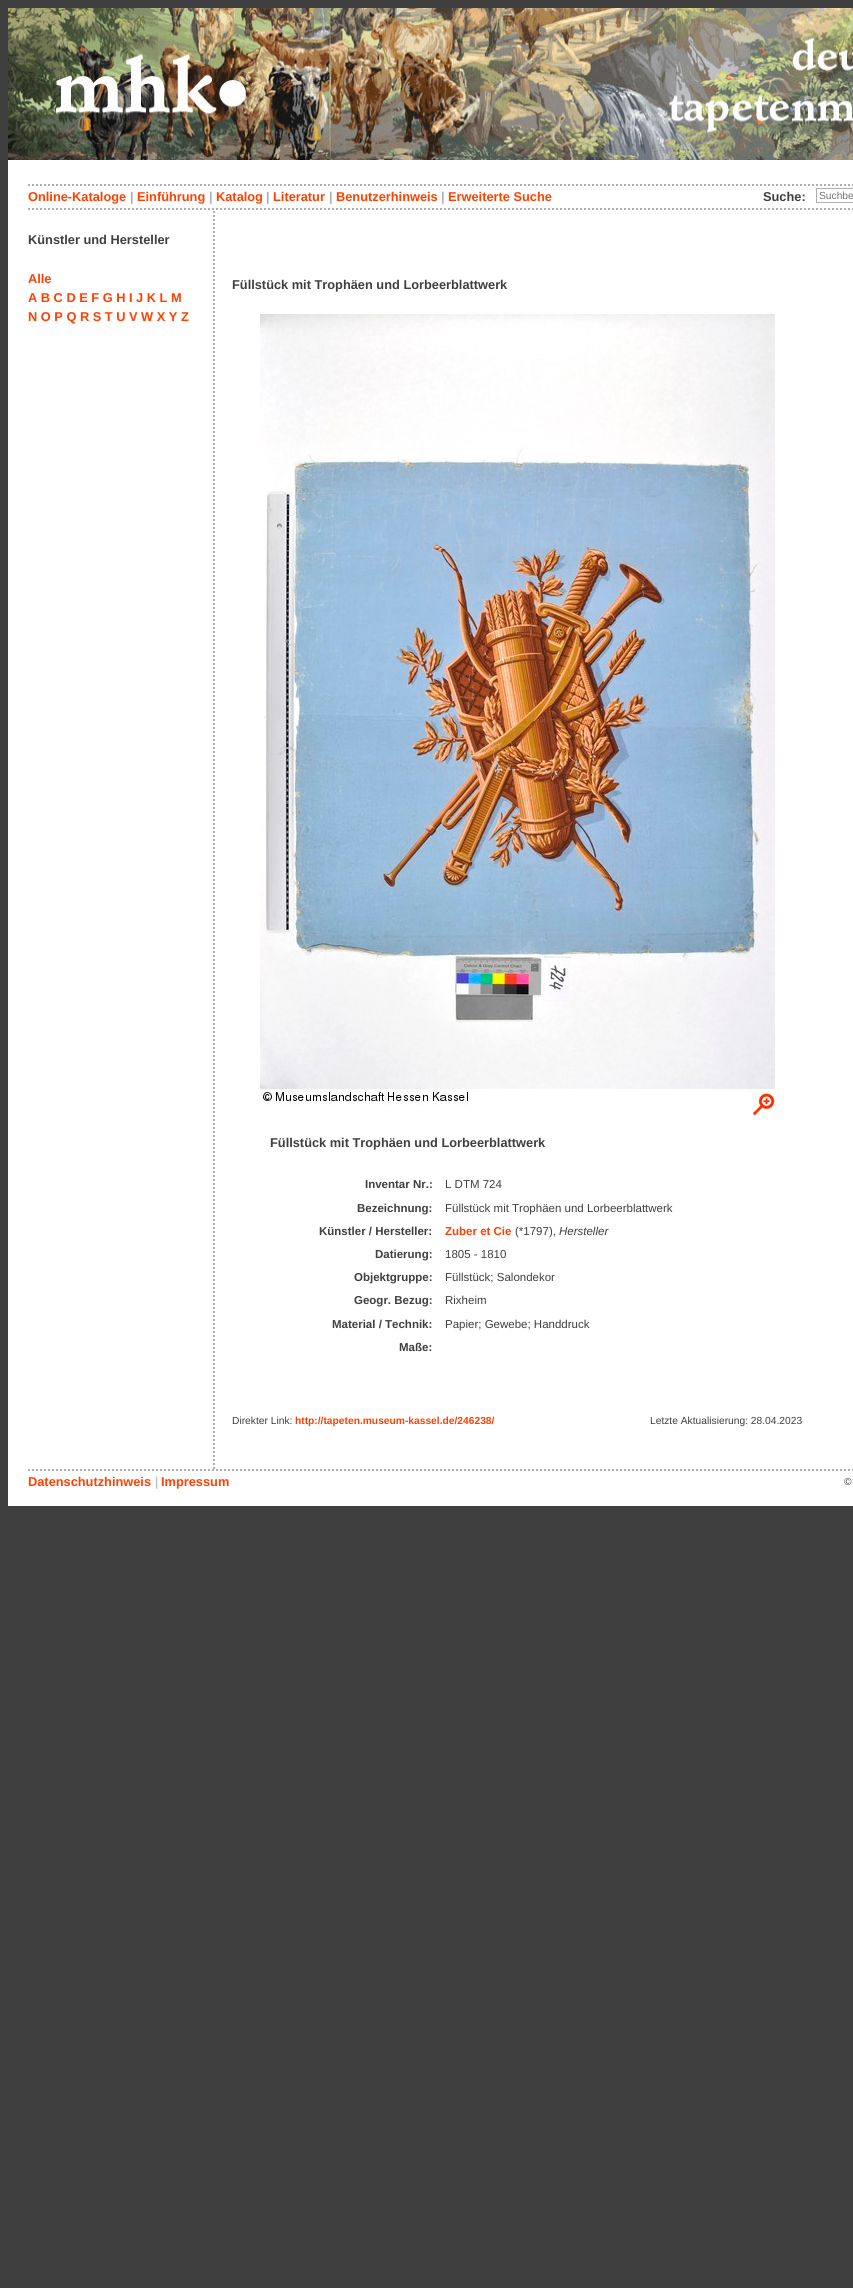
import math
import cairo


def use_color(cr, r, g, b):
  cr.set_source_rgb(r / 255, g / 255, b / 255)

def text(cr, x, y, s, family, size, color, bold=False, italic=False):
  cr.select_font_face(family, cairo.FONT_SLANT_ITALIC if italic else cairo.FONT_SLANT_NORMAL, cairo.FONT_WEIGHT_BOLD if bold else cairo.FONT_WEIGHT_NORMAL)
  cr.set_font_size(size)
  use_color(cr, *color)
  cr.move_to(x, y)
  cr.show_text(s)

def box(cr, x, y, w, h, *color):
  use_color(cr, *color)
  cr.rectangle(x, y, w, h)
  cr.fill()

def picture(cr, path, x, y, w, h):
  cr.save()
  cr.set_source_surface(cairo.ImageSurface.create_from_png(path), x, y)
  cr.rectangle(x, y, w, h)
  cr.fill()
  cr.restore()

def draw(cr):
  use_color(cr, 63, 63, 63)
  cr.paint()
  box(cr, 8, 160, 845, 1346, 255, 255, 255)
  picture(cr, "img_01.png", 8, 8, 845, 152)
  cr.new_path()
  cr.move_to(28, 185)
  cr.line_to(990, 185)
  use_color(cr, 175, 175, 175)
  cr.set_dash([2, 2])
  cr.stroke()
  cr.rectangle(816.5, 188.5, 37, 14)
  cr.set_line_width(1)
  cr.set_dash([])
  cr.stroke()
  cr.new_path()
  cr.move_to(28, 209)
  cr.line_to(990, 209)
  cr.set_line_width(2)
  cr.set_dash([2, 2])
  cr.stroke()
  cr.new_path()
  cr.move_to(214, 211)
  cr.line_to(214, 1469)
  cr.stroke()
  picture(cr, "img_02.png", 260, 314, 515, 792)
  picture(cr, "img_03.png", 752, 1093, 23, 23)
  cr.new_path()
  cr.move_to(28, 1470)
  cr.line_to(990, 1470)
  cr.stroke()
  text(cr, 28, 201, "Online-Kataloge", "Liberation Sans", 12.8, (255, 64, 0), bold=True)
  text(cr, 130, 201, "|", "Liberation Sans", 12.8, (175, 175, 175), bold=True)
  text(cr, 137, 201, "Einführung", "Liberation Sans", 12.8, (255, 64, 0), bold=True)
  text(cr, 209, 201, "|", "Liberation Sans", 12.8, (175, 175, 175), bold=True)
  text(cr, 216, 201, "Katalog", "Liberation Sans", 12.8, (255, 64, 0), bold=True)
  text(cr, 266, 201, "|", "Liberation Sans", 12.8, (175, 175, 175), bold=True)
  text(cr, 273, 201, "Literatur", "Liberation Sans", 12.8, (255, 64, 0), bold=True)
  text(cr, 329, 201, "|", "Liberation Sans", 12.8, (175, 175, 175), bold=True)
  text(cr, 336, 201, "Benutzerhinweis", "Liberation Sans", 12.8, (255, 64, 0), bold=True)
  text(cr, 441, 201, "|", "Liberation Sans", 12.8, (175, 175, 175), bold=True)
  text(cr, 448, 201, "Erweiterte Suche", "Liberation Sans", 12.8, (255, 64, 0), bold=True)
  text(cr, 763, 201, "Suche:", "Liberation Sans", 12.8, (63, 63, 63), bold=True)
  text(cr, 819, 199, "Suchbe", "Liberation Sans", 10.25, (117, 117, 117))
  text(cr, 28, 244, "Künstler und Hersteller", "Liberation Sans", 12.8, (63, 63, 63), bold=True)
  text(cr, 28, 283, "Alle", "Liberation Sans", 12.8, (255, 64, 0), bold=True)
  text(cr, 28, 302, "A B C D E F G H I J K L M", "Liberation Sans", 12.8, (255, 64, 0), bold=True)
  text(cr, 28, 321, "N O P Q R S T U V W X Y Z", "Liberation Sans", 12.8, (255, 64, 0), bold=True)
  text(cr, 232, 289, "Füllstück mit Trophäen und Lorbeerblattwerk", "Liberation Sans", 12.8, (63, 63, 63), bold=True)
  text(cr, 270, 1147, "Füllstück mit Trophäen und Lorbeerblattwerk", "Liberation Sans", 12.8, (63, 63, 63), bold=True)
  text(cr, 365, 1188, "Inventar Nr.:", "Liberation Sans", 11.5, (63, 63, 63), bold=True)
  text(cr, 445, 1188, "L DTM 724", "Liberation Sans", 11.5, (63, 63, 63))
  text(cr, 357, 1212, "Bezeichnung:", "Liberation Sans", 11.5, (63, 63, 63), bold=True)
  text(cr, 445, 1212, "Füllstück mit Trophäen und Lorbeerblattwerk", "Liberation Sans", 11.5, (63, 63, 63))
  text(cr, 319, 1235, "Künstler / Hersteller:", "Liberation Sans", 11.5, (63, 63, 63), bold=True)
  text(cr, 445, 1235, "Zuber et Cie", "Liberation Sans", 11.5, (255, 64, 0), bold=True)
  text(cr, 515, 1235, "(*1797),", "Liberation Sans", 11.5, (63, 63, 63))
  text(cr, 559, 1235, "Hersteller", "Liberation Sans", 11.5, (63, 63, 63), italic=True)
  text(cr, 375, 1258, "Datierung:", "Liberation Sans", 11.5, (63, 63, 63), bold=True)
  text(cr, 445, 1258, "1805 - 1810", "Liberation Sans", 11.5, (63, 63, 63))
  text(cr, 354, 1281, "Objektgruppe:", "Liberation Sans", 11.5, (63, 63, 63), bold=True)
  text(cr, 445, 1281, "Füllstück; Salondekor", "Liberation Sans", 11.5, (63, 63, 63))
  text(cr, 354, 1304, "Geogr. Bezug:", "Liberation Sans", 11.5, (63, 63, 63), bold=True)
  text(cr, 445, 1304, "Rixheim", "Liberation Sans", 11.5, (63, 63, 63))
  text(cr, 332, 1328, "Material / Technik:", "Liberation Sans", 11.5, (63, 63, 63), bold=True)
  text(cr, 445, 1328, "Papier; Gewebe; Handdruck", "Liberation Sans", 11.5, (63, 63, 63))
  text(cr, 399, 1351, "Maße:", "Liberation Sans", 11.5, (63, 63, 63), bold=True)
  text(cr, 232, 1424, "Direkter Link:", "Liberation Sans", 10.25, (63, 63, 63))
  text(cr, 295, 1424, "http://tapeten.museum-kassel.de/246238/", "Liberation Sans", 10.25, (255, 64, 0), bold=True)
  text(cr, 650, 1424, "Letzte Aktualisierung: 28.04.2023", "Liberation Sans", 10.25, (63, 63, 63))
  text(cr, 28, 1486, "Datenschutzhinweis", "Liberation Sans", 12.8, (255, 64, 0), bold=True)
  text(cr, 155, 1486, "|", "Liberation Sans", 12.8, (175, 175, 175))
  text(cr, 161, 1486, "Impressum", "Liberation Sans", 12.8, (255, 64, 0), bold=True)
  text(cr, 844, 1485, "©", "Liberation Sans", 10.25, (63, 63, 63))


surface = cairo.ImageSurface(cairo.FORMAT_RGB24, 853, 2288)
cr = cairo.Context(surface)
options = cairo.FontOptions()
options.set_hint_metrics(cairo.HINT_METRICS_OFF)
options.set_hint_style(cairo.HINT_STYLE_NONE)
cr.set_font_options(options)
cr.set_miter_limit(4)
draw(cr)
surface.write_to_png("out.png")
